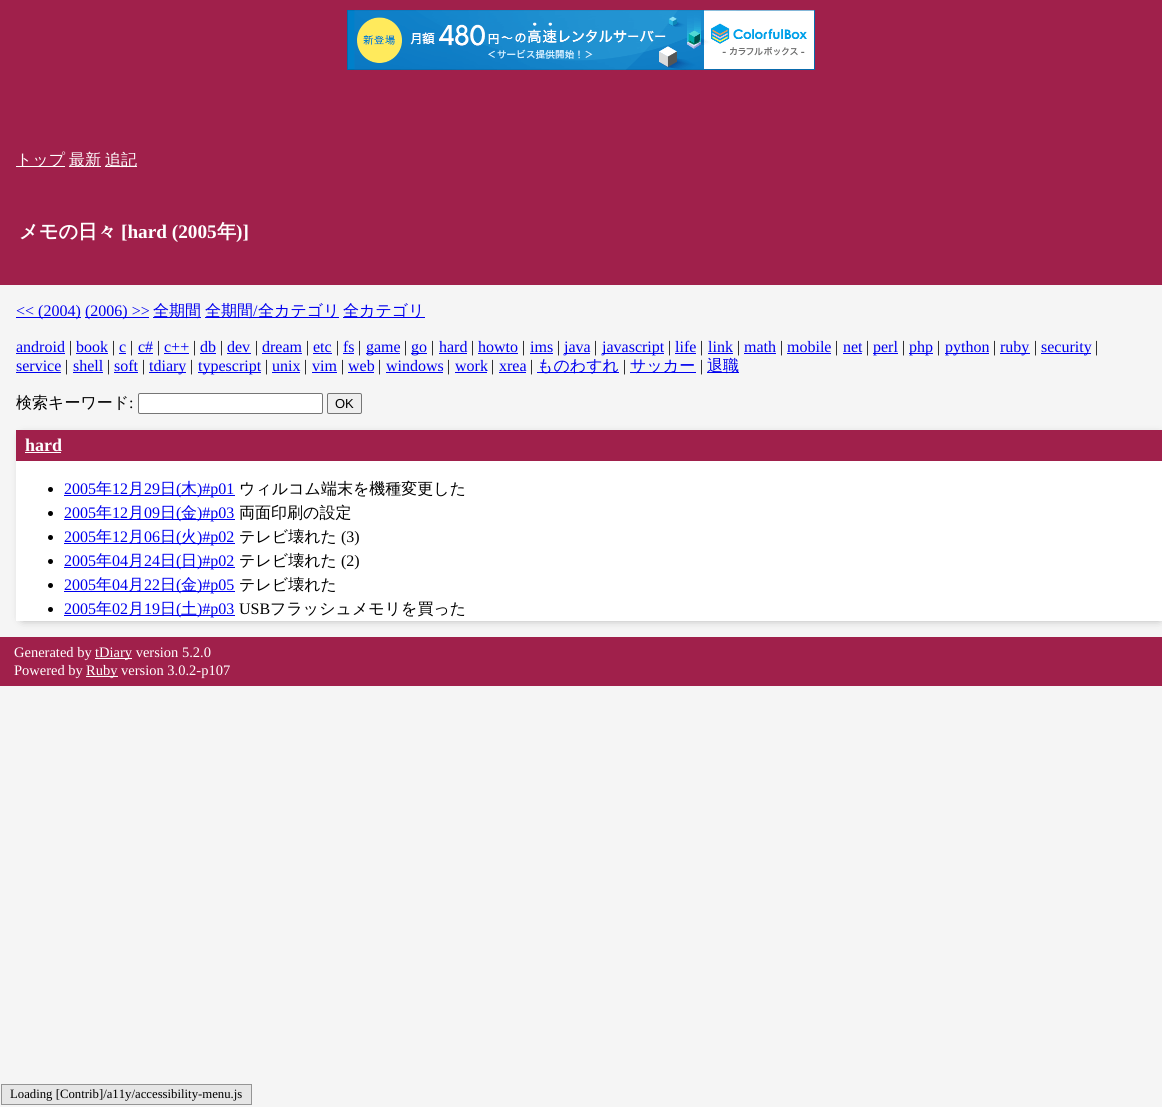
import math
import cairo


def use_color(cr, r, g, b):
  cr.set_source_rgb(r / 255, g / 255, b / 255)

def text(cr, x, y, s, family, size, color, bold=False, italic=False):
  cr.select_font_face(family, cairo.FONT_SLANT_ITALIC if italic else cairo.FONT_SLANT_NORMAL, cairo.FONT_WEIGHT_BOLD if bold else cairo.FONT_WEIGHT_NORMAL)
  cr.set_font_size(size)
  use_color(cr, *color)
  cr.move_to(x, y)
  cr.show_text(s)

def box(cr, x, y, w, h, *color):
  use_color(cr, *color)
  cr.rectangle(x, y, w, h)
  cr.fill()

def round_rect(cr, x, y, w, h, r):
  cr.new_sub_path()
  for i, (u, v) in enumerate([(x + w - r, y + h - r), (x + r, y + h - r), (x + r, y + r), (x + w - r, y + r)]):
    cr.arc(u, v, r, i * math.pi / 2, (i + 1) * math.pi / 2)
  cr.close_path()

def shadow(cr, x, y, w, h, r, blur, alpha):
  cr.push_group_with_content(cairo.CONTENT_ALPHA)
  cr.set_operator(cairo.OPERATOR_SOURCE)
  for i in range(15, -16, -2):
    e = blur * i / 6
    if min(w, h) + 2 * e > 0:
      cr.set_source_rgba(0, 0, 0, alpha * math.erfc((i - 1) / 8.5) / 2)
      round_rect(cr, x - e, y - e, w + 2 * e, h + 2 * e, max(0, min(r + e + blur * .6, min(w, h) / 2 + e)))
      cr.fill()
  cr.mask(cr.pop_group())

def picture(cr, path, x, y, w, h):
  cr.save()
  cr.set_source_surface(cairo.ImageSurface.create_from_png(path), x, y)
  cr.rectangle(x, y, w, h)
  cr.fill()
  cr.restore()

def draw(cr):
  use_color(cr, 245, 245, 245)
  cr.paint()
  box(cr, 0, 0, 1162, 285, 160, 32, 75)
  picture(cr, "img_01.png", 347, 10, 468, 60)
  box(cr, 16, 166, 49, 1, 255, 255, 255)
  box(cr, 69, 166, 32, 1, 255, 255, 255)
  box(cr, 105, 166, 32, 1, 255, 255, 255)
  box(cr, 16, 317, 65, 1, 0, 0, 238)
  box(cr, 85, 317, 64, 1, 0, 0, 238)
  box(cr, 153, 317, 48, 1, 0, 0, 238)
  box(cr, 205, 317, 134, 1, 0, 0, 238)
  box(cr, 343, 317, 82, 1, 0, 0, 238)
  box(cr, 16, 353, 49, 1, 0, 0, 238)
  box(cr, 76, 353, 32, 1, 0, 0, 238)
  box(cr, 119, 353, 7, 1, 0, 0, 238)
  box(cr, 138, 353, 15, 1, 0, 0, 238)
  box(cr, 164, 353, 25, 1, 0, 0, 238)
  box(cr, 200, 353, 16, 1, 0, 0, 238)
  box(cr, 227, 353, 24, 1, 0, 0, 238)
  box(cr, 262, 353, 40, 1, 0, 0, 238)
  box(cr, 313, 353, 19, 1, 0, 0, 238)
  box(cr, 343, 353, 11, 1, 0, 0, 238)
  box(cr, 366, 353, 34, 1, 0, 0, 238)
  box(cr, 411, 353, 16, 1, 0, 0, 238)
  box(cr, 439, 353, 28, 1, 0, 0, 238)
  box(cr, 478, 353, 40, 1, 0, 0, 238)
  box(cr, 530, 353, 23, 1, 0, 0, 238)
  box(cr, 564, 353, 26, 1, 0, 0, 238)
  box(cr, 602, 353, 62, 1, 0, 0, 238)
  box(cr, 675, 353, 21, 1, 0, 0, 238)
  box(cr, 708, 353, 25, 1, 0, 0, 238)
  box(cr, 744, 353, 32, 1, 0, 0, 238)
  box(cr, 787, 353, 44, 1, 0, 0, 238)
  box(cr, 843, 353, 19, 1, 0, 0, 238)
  box(cr, 873, 353, 25, 1, 0, 0, 238)
  box(cr, 909, 353, 24, 1, 0, 0, 238)
  box(cr, 945, 353, 44, 1, 0, 0, 238)
  box(cr, 1000, 353, 30, 1, 0, 0, 238)
  box(cr, 1041, 353, 50, 1, 0, 0, 238)
  box(cr, 16, 372, 45, 1, 0, 0, 238)
  box(cr, 73, 372, 30, 1, 0, 0, 238)
  box(cr, 114, 372, 24, 1, 0, 0, 238)
  box(cr, 149, 372, 37, 1, 0, 0, 238)
  box(cr, 198, 372, 63, 1, 0, 0, 238)
  box(cr, 272, 372, 28, 1, 0, 0, 238)
  box(cr, 312, 372, 25, 1, 0, 0, 238)
  box(cr, 348, 372, 26, 1, 0, 0, 238)
  box(cr, 386, 372, 57, 1, 0, 0, 238)
  box(cr, 455, 372, 32, 1, 0, 0, 238)
  box(cr, 499, 372, 27, 1, 0, 0, 238)
  box(cr, 537, 372, 82, 1, 0, 0, 238)
  box(cr, 630, 372, 66, 1, 0, 0, 238)
  box(cr, 707, 372, 32, 1, 0, 0, 238)
  use_color(cr, 255, 255, 255)
  round_rect(cr, 138.5, 393.5, 184, 20, 1.5)
  cr.fill_preserve()
  use_color(cr, 118, 118, 118)
  cr.set_line_width(1)
  cr.stroke()
  use_color(cr, 239, 239, 239)
  round_rect(cr, 327.5, 393.5, 34, 20, 1.5)
  cr.fill_preserve()
  use_color(cr, 118, 118, 118)
  cr.stroke()
  use_color(cr, 128, 128, 128)
  shadow(cr, 23, 437, 1136, 181, 0, 5, 1)
  box(cr, 16, 461, 1146, 160, 255, 255, 255)
  box(cr, 16, 430, 1146, 31, 160, 32, 75)
  box(cr, 25, 452, 36, 1, 255, 255, 255)
  use_color(cr, 0, 0, 0)
  cr.arc(50.5, 489.5, 2.5, 0, 2 * math.pi)
  cr.fill()
  box(cr, 64, 495, 171, 1, 0, 0, 238)
  use_color(cr, 0, 0, 0)
  cr.arc(50.5, 513.5, 2.5, 0, 2 * math.pi)
  cr.fill()
  box(cr, 64, 519, 171, 1, 0, 0, 238)
  use_color(cr, 0, 0, 0)
  cr.arc(50.5, 537.5, 2.5, 0, 2 * math.pi)
  cr.fill()
  box(cr, 64, 543, 171, 1, 0, 0, 238)
  use_color(cr, 0, 0, 0)
  cr.arc(50.5, 561.5, 2.5, 0, 2 * math.pi)
  cr.fill()
  box(cr, 64, 567, 171, 1, 0, 0, 238)
  use_color(cr, 0, 0, 0)
  cr.arc(50.5, 585.5, 2.5, 0, 2 * math.pi)
  cr.fill()
  box(cr, 64, 591, 171, 1, 0, 0, 238)
  use_color(cr, 0, 0, 0)
  cr.arc(50.5, 609.5, 2.5, 0, 2 * math.pi)
  cr.fill()
  box(cr, 64, 615, 171, 1, 0, 0, 238)
  box(cr, 0, 637, 1162, 49, 160, 32, 75)
  box(cr, 95, 658, 37, 1, 255, 255, 255)
  box(cr, 86, 676, 32, 1, 255, 255, 255)
  use_color(cr, 230, 230, 230)
  cr.rectangle(1.5, 1084.5, 250, 20)
  cr.fill_preserve()
  use_color(cr, 149, 149, 149)
  cr.stroke()
  text(cr, 16, 165, "トップ", "WenQuanYi Zen Hei Medium", 16, (255, 255, 255))
  text(cr, 69, 165, "最新", "WenQuanYi Zen Hei Medium", 16, (255, 255, 255))
  text(cr, 105, 165, "追記", "WenQuanYi Zen Hei Medium", 16, (255, 255, 255))
  text(cr, 19, 238, "メモの日々", "WenQuanYi Zen Hei", 19.25, (255, 255, 255), bold=True)
  text(cr, 121, 238, "[hard (2005", "Liberation Serif", 19.25, (255, 255, 255), bold=True)
  text(cr, 217, 238, "年", "WenQuanYi Zen Hei", 19.25, (255, 255, 255), bold=True)
  text(cr, 236, 238, ")]", "Liberation Serif", 19.25, (255, 255, 255), bold=True)
  text(cr, 16, 316, "<< (2004)", "Liberation Serif", 16, (0, 0, 238))
  text(cr, 85, 316, "(2006) >>", "Liberation Serif", 16, (0, 0, 238))
  text(cr, 153, 316, "全期間", "WenQuanYi Zen Hei Medium", 16, (0, 0, 238))
  text(cr, 205, 316, "全期間", "WenQuanYi Zen Hei Medium", 16, (0, 0, 238))
  text(cr, 253, 316, "/", "Liberation Serif", 16, (0, 0, 238))
  text(cr, 258, 316, "全カテゴリ", "WenQuanYi Zen Hei Medium", 16, (0, 0, 238))
  text(cr, 343, 316, "全カテゴリ", "WenQuanYi Zen Hei Medium", 16, (0, 0, 238))
  text(cr, 16, 352, "android", "Liberation Serif", 16, (0, 0, 238))
  text(cr, 69, 352, "|", "Liberation Serif", 16, (0, 0, 0))
  text(cr, 76, 352, "book", "Liberation Serif", 16, (0, 0, 238))
  text(cr, 112, 352, "|", "Liberation Serif", 16, (0, 0, 0))
  text(cr, 119, 352, "c", "Liberation Serif", 16, (0, 0, 238))
  text(cr, 130, 352, "|", "Liberation Serif", 16, (0, 0, 0))
  text(cr, 138, 352, "c#", "Liberation Serif", 16, (0, 0, 238))
  text(cr, 157, 352, "|", "Liberation Serif", 16, (0, 0, 0))
  text(cr, 164, 352, "c++", "Liberation Serif", 16, (0, 0, 238))
  text(cr, 193, 352, "|", "Liberation Serif", 16, (0, 0, 0))
  text(cr, 200, 352, "db", "Liberation Serif", 16, (0, 0, 238))
  text(cr, 220, 352, "|", "Liberation Serif", 16, (0, 0, 0))
  text(cr, 227, 352, "dev", "Liberation Serif", 16, (0, 0, 238))
  text(cr, 255, 352, "|", "Liberation Serif", 16, (0, 0, 0))
  text(cr, 262, 352, "dream", "Liberation Serif", 16, (0, 0, 238))
  text(cr, 306, 352, "|", "Liberation Serif", 16, (0, 0, 0))
  text(cr, 313, 352, "etc", "Liberation Serif", 16, (0, 0, 238))
  text(cr, 336, 352, "|", "Liberation Serif", 16, (0, 0, 0))
  text(cr, 343, 352, "fs", "Liberation Serif", 16, (0, 0, 238))
  text(cr, 358, 352, "|", "Liberation Serif", 16, (0, 0, 0))
  text(cr, 366, 352, "game", "Liberation Serif", 16, (0, 0, 238))
  text(cr, 404, 352, "|", "Liberation Serif", 16, (0, 0, 0))
  text(cr, 411, 352, "go", "Liberation Serif", 16, (0, 0, 238))
  text(cr, 431, 352, "|", "Liberation Serif", 16, (0, 0, 0))
  text(cr, 439, 352, "hard", "Liberation Serif", 16, (0, 0, 238))
  text(cr, 471, 352, "|", "Liberation Serif", 16, (0, 0, 0))
  text(cr, 478, 352, "howto", "Liberation Serif", 16, (0, 0, 238))
  text(cr, 522, 352, "|", "Liberation Serif", 16, (0, 0, 0))
  text(cr, 530, 352, "ims", "Liberation Serif", 16, (0, 0, 238))
  text(cr, 557, 352, "|", "Liberation Serif", 16, (0, 0, 0))
  text(cr, 564, 352, "java", "Liberation Serif", 16, (0, 0, 238))
  text(cr, 594, 352, "|", "Liberation Serif", 16, (0, 0, 0))
  text(cr, 602, 352, "javascript", "Liberation Serif", 16, (0, 0, 238))
  text(cr, 668, 352, "|", "Liberation Serif", 16, (0, 0, 0))
  text(cr, 675, 352, "life", "Liberation Serif", 16, (0, 0, 238))
  text(cr, 700, 352, "|", "Liberation Serif", 16, (0, 0, 0))
  text(cr, 708, 352, "link", "Liberation Serif", 16, (0, 0, 238))
  text(cr, 737, 352, "|", "Liberation Serif", 16, (0, 0, 0))
  text(cr, 744, 352, "math", "Liberation Serif", 16, (0, 0, 238))
  text(cr, 780, 352, "|", "Liberation Serif", 16, (0, 0, 0))
  text(cr, 787, 352, "mobile", "Liberation Serif", 16, (0, 0, 238))
  text(cr, 835, 352, "|", "Liberation Serif", 16, (0, 0, 0))
  text(cr, 843, 352, "net", "Liberation Serif", 16, (0, 0, 238))
  text(cr, 866, 352, "|", "Liberation Serif", 16, (0, 0, 0))
  text(cr, 873, 352, "perl", "Liberation Serif", 16, (0, 0, 238))
  text(cr, 902, 352, "|", "Liberation Serif", 16, (0, 0, 0))
  text(cr, 909, 352, "php", "Liberation Serif", 16, (0, 0, 238))
  text(cr, 937, 352, "|", "Liberation Serif", 16, (0, 0, 0))
  text(cr, 945, 352, "python", "Liberation Serif", 16, (0, 0, 238))
  text(cr, 993, 352, "|", "Liberation Serif", 16, (0, 0, 0))
  text(cr, 1000, 352, "ruby", "Liberation Serif", 16, (0, 0, 238))
  text(cr, 1034, 352, "|", "Liberation Serif", 16, (0, 0, 0))
  text(cr, 1041, 352, "security", "Liberation Serif", 16, (0, 0, 238))
  text(cr, 1095, 352, "|", "Liberation Serif", 16, (0, 0, 0))
  text(cr, 16, 371, "service", "Liberation Serif", 16, (0, 0, 238))
  text(cr, 65, 371, "|", "Liberation Serif", 16, (0, 0, 0))
  text(cr, 73, 371, "shell", "Liberation Serif", 16, (0, 0, 238))
  text(cr, 107, 371, "|", "Liberation Serif", 16, (0, 0, 0))
  text(cr, 114, 371, "soft", "Liberation Serif", 16, (0, 0, 238))
  text(cr, 142, 371, "|", "Liberation Serif", 16, (0, 0, 0))
  text(cr, 149, 371, "tdiary", "Liberation Serif", 16, (0, 0, 238))
  text(cr, 190, 371, "|", "Liberation Serif", 16, (0, 0, 0))
  text(cr, 198, 371, "typescript", "Liberation Serif", 16, (0, 0, 238))
  text(cr, 265, 371, "|", "Liberation Serif", 16, (0, 0, 0))
  text(cr, 272, 371, "unix", "Liberation Serif", 16, (0, 0, 238))
  text(cr, 304, 371, "|", "Liberation Serif", 16, (0, 0, 0))
  text(cr, 312, 371, "vim", "Liberation Serif", 16, (0, 0, 238))
  text(cr, 341, 371, "|", "Liberation Serif", 16, (0, 0, 0))
  text(cr, 348, 371, "web", "Liberation Serif", 16, (0, 0, 238))
  text(cr, 378, 371, "|", "Liberation Serif", 16, (0, 0, 0))
  text(cr, 386, 371, "windows", "Liberation Serif", 16, (0, 0, 238))
  text(cr, 447, 371, "|", "Liberation Serif", 16, (0, 0, 0))
  text(cr, 455, 371, "work", "Liberation Serif", 16, (0, 0, 238))
  text(cr, 491, 371, "|", "Liberation Serif", 16, (0, 0, 0))
  text(cr, 499, 371, "xrea", "Liberation Serif", 16, (0, 0, 238))
  text(cr, 530, 371, "|", "Liberation Serif", 16, (0, 0, 0))
  text(cr, 537, 371, "ものわすれ", "WenQuanYi Zen Hei Medium", 16, (0, 0, 238))
  text(cr, 623, 371, "|", "Liberation Serif", 16, (0, 0, 0))
  text(cr, 630, 371, "サッカー", "WenQuanYi Zen Hei Medium", 16, (0, 0, 238))
  text(cr, 700, 371, "|", "Liberation Serif", 16, (0, 0, 0))
  text(cr, 707, 371, "退職", "WenQuanYi Zen Hei Medium", 16, (0, 0, 238))
  text(cr, 16, 408, "検索キーワード", "WenQuanYi Zen Hei Medium", 16, (0, 0, 0))
  text(cr, 129, 408, ":", "Liberation Serif", 16, (0, 0, 0))
  text(cr, 335, 408, "OK", "Liberation Sans", 13, (0, 0, 0))
  text(cr, 25, 451, "hard", "Liberation Serif", 18, (255, 255, 255), bold=True)
  text(cr, 64, 494, "2005", "Liberation Serif", 16, (0, 0, 238))
  text(cr, 96, 494, "年", "WenQuanYi Zen Hei Medium", 16, (0, 0, 238))
  text(cr, 112, 494, "12", "Liberation Serif", 16, (0, 0, 238))
  text(cr, 128, 494, "月", "WenQuanYi Zen Hei Medium", 16, (0, 0, 238))
  text(cr, 144, 494, "29", "Liberation Serif", 16, (0, 0, 238))
  text(cr, 160, 494, "日", "WenQuanYi Zen Hei Medium", 16, (0, 0, 238))
  text(cr, 176, 494, "(", "Liberation Serif", 16, (0, 0, 238))
  text(cr, 181, 494, "木", "WenQuanYi Zen Hei Medium", 16, (0, 0, 238))
  text(cr, 197, 494, ")#p01", "Liberation Serif", 16, (0, 0, 238))
  text(cr, 239, 494, "ウィルコム端末を機種変更した", "WenQuanYi Zen Hei Medium", 16, (0, 0, 0))
  text(cr, 64, 518, "2005", "Liberation Serif", 16, (0, 0, 238))
  text(cr, 96, 518, "年", "WenQuanYi Zen Hei Medium", 16, (0, 0, 238))
  text(cr, 112, 518, "12", "Liberation Serif", 16, (0, 0, 238))
  text(cr, 128, 518, "月", "WenQuanYi Zen Hei Medium", 16, (0, 0, 238))
  text(cr, 144, 518, "09", "Liberation Serif", 16, (0, 0, 238))
  text(cr, 160, 518, "日", "WenQuanYi Zen Hei Medium", 16, (0, 0, 238))
  text(cr, 176, 518, "(", "Liberation Serif", 16, (0, 0, 238))
  text(cr, 181, 518, "金", "WenQuanYi Zen Hei Medium", 16, (0, 0, 238))
  text(cr, 197, 518, ")#p03", "Liberation Serif", 16, (0, 0, 238))
  text(cr, 239, 518, "両面印刷の設定", "WenQuanYi Zen Hei Medium", 16, (0, 0, 0))
  text(cr, 64, 542, "2005", "Liberation Serif", 16, (0, 0, 238))
  text(cr, 96, 542, "年", "WenQuanYi Zen Hei Medium", 16, (0, 0, 238))
  text(cr, 112, 542, "12", "Liberation Serif", 16, (0, 0, 238))
  text(cr, 128, 542, "月", "WenQuanYi Zen Hei Medium", 16, (0, 0, 238))
  text(cr, 144, 542, "06", "Liberation Serif", 16, (0, 0, 238))
  text(cr, 160, 542, "日", "WenQuanYi Zen Hei Medium", 16, (0, 0, 238))
  text(cr, 176, 542, "(", "Liberation Serif", 16, (0, 0, 238))
  text(cr, 181, 542, "火", "WenQuanYi Zen Hei Medium", 16, (0, 0, 238))
  text(cr, 197, 542, ")#p02", "Liberation Serif", 16, (0, 0, 238))
  text(cr, 239, 542, "テレビ壊れた", "WenQuanYi Zen Hei Medium", 16, (0, 0, 0))
  text(cr, 341, 542, "(3)", "Liberation Serif", 16, (0, 0, 0))
  text(cr, 64, 566, "2005", "Liberation Serif", 16, (0, 0, 238))
  text(cr, 96, 566, "年", "WenQuanYi Zen Hei Medium", 16, (0, 0, 238))
  text(cr, 112, 566, "04", "Liberation Serif", 16, (0, 0, 238))
  text(cr, 128, 566, "月", "WenQuanYi Zen Hei Medium", 16, (0, 0, 238))
  text(cr, 144, 566, "24", "Liberation Serif", 16, (0, 0, 238))
  text(cr, 160, 566, "日", "WenQuanYi Zen Hei Medium", 16, (0, 0, 238))
  text(cr, 176, 566, "(", "Liberation Serif", 16, (0, 0, 238))
  text(cr, 181, 566, "日", "WenQuanYi Zen Hei Medium", 16, (0, 0, 238))
  text(cr, 197, 566, ")#p02", "Liberation Serif", 16, (0, 0, 238))
  text(cr, 239, 566, "テレビ壊れた", "WenQuanYi Zen Hei Medium", 16, (0, 0, 0))
  text(cr, 341, 566, "(2)", "Liberation Serif", 16, (0, 0, 0))
  text(cr, 64, 590, "2005", "Liberation Serif", 16, (0, 0, 238))
  text(cr, 96, 590, "年", "WenQuanYi Zen Hei Medium", 16, (0, 0, 238))
  text(cr, 112, 590, "04", "Liberation Serif", 16, (0, 0, 238))
  text(cr, 128, 590, "月", "WenQuanYi Zen Hei Medium", 16, (0, 0, 238))
  text(cr, 144, 590, "22", "Liberation Serif", 16, (0, 0, 238))
  text(cr, 160, 590, "日", "WenQuanYi Zen Hei Medium", 16, (0, 0, 238))
  text(cr, 176, 590, "(", "Liberation Serif", 16, (0, 0, 238))
  text(cr, 181, 590, "金", "WenQuanYi Zen Hei Medium", 16, (0, 0, 238))
  text(cr, 197, 590, ")#p05", "Liberation Serif", 16, (0, 0, 238))
  text(cr, 239, 590, "テレビ壊れた", "WenQuanYi Zen Hei Medium", 16, (0, 0, 0))
  text(cr, 64, 614, "2005", "Liberation Serif", 16, (0, 0, 238))
  text(cr, 96, 614, "年", "WenQuanYi Zen Hei Medium", 16, (0, 0, 238))
  text(cr, 112, 614, "02", "Liberation Serif", 16, (0, 0, 238))
  text(cr, 128, 614, "月", "WenQuanYi Zen Hei Medium", 16, (0, 0, 238))
  text(cr, 144, 614, "19", "Liberation Serif", 16, (0, 0, 238))
  text(cr, 160, 614, "日", "WenQuanYi Zen Hei Medium", 16, (0, 0, 238))
  text(cr, 176, 614, "(", "Liberation Serif", 16, (0, 0, 238))
  text(cr, 181, 614, "土", "WenQuanYi Zen Hei Medium", 16, (0, 0, 238))
  text(cr, 197, 614, ")#p03", "Liberation Serif", 16, (0, 0, 238))
  text(cr, 239, 614, "USB", "Liberation Serif", 16, (0, 0, 0))
  text(cr, 270, 614, "フラッシュメモリを買った", "WenQuanYi Zen Hei Medium", 16, (0, 0, 0))
  text(cr, 14, 657, "Generated by", "Liberation Serif", 14.5, (255, 255, 255))
  text(cr, 95, 657, "tDiary version 5.2.0", "Liberation Serif", 14.5, (255, 255, 255))
  text(cr, 14, 675, "Powered by", "Liberation Serif", 14.5, (255, 255, 255))
  text(cr, 86, 675, "Ruby version 3.0.2-p107", "Liberation Serif", 14.5, (255, 255, 255))
  text(cr, 10, 1098, "Loading [Contrib]/a11y/accessibility-menu.js", "Liberation Serif", 12.75, (0, 0, 0))


surface = cairo.ImageSurface(cairo.FORMAT_RGB24, 1162, 1107)
cr = cairo.Context(surface)
options = cairo.FontOptions()
options.set_hint_metrics(cairo.HINT_METRICS_OFF)
options.set_hint_style(cairo.HINT_STYLE_NONE)
cr.set_font_options(options)
cr.set_miter_limit(4)
draw(cr)
surface.write_to_png("out.png")
